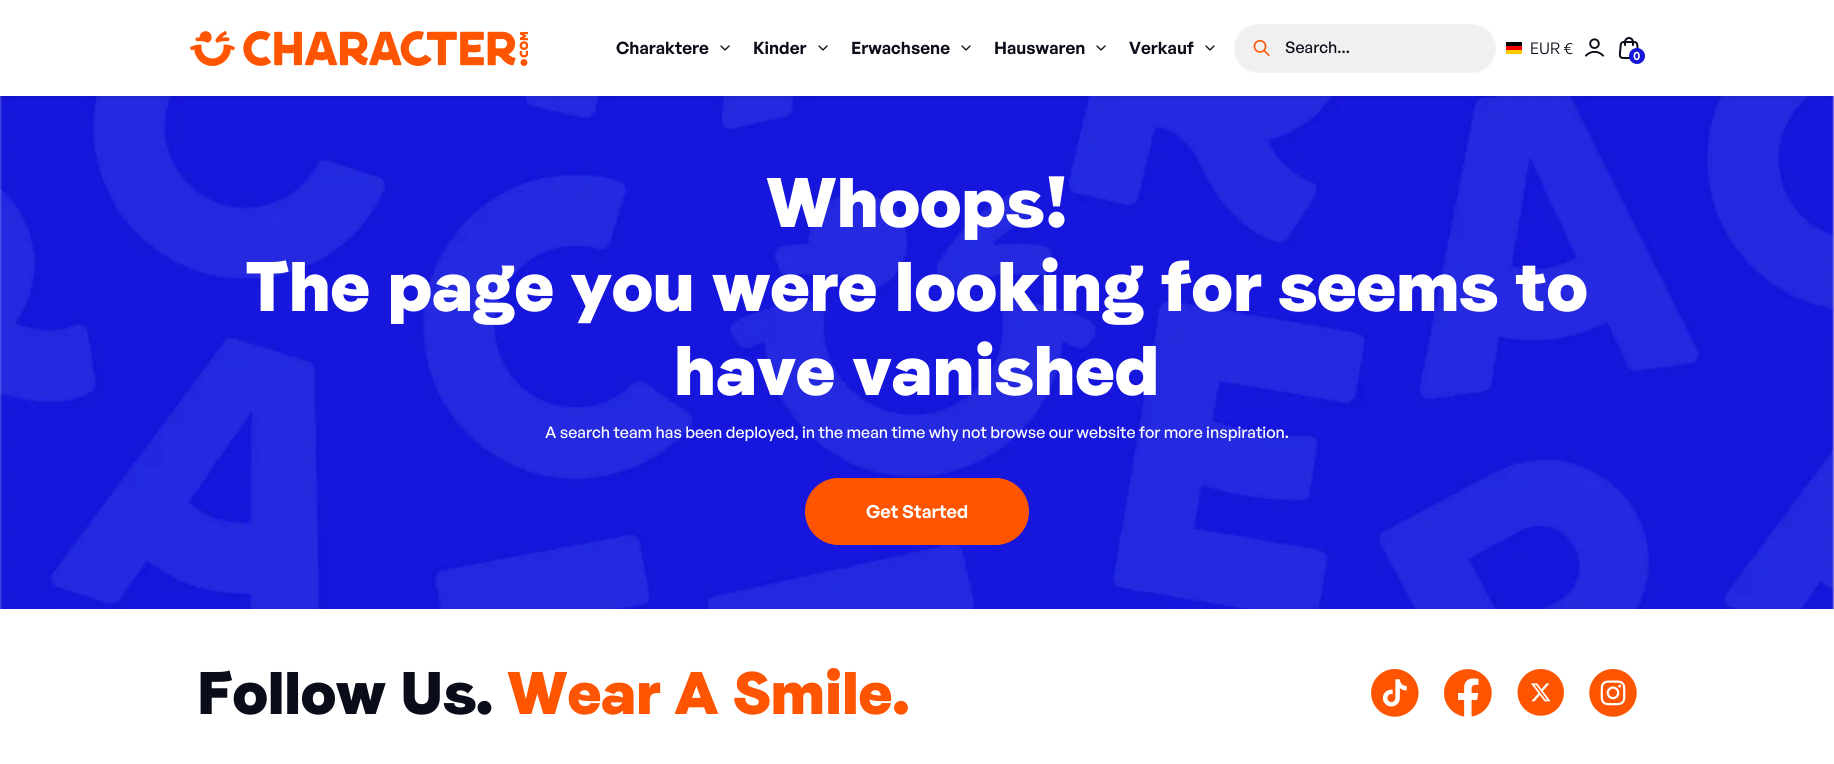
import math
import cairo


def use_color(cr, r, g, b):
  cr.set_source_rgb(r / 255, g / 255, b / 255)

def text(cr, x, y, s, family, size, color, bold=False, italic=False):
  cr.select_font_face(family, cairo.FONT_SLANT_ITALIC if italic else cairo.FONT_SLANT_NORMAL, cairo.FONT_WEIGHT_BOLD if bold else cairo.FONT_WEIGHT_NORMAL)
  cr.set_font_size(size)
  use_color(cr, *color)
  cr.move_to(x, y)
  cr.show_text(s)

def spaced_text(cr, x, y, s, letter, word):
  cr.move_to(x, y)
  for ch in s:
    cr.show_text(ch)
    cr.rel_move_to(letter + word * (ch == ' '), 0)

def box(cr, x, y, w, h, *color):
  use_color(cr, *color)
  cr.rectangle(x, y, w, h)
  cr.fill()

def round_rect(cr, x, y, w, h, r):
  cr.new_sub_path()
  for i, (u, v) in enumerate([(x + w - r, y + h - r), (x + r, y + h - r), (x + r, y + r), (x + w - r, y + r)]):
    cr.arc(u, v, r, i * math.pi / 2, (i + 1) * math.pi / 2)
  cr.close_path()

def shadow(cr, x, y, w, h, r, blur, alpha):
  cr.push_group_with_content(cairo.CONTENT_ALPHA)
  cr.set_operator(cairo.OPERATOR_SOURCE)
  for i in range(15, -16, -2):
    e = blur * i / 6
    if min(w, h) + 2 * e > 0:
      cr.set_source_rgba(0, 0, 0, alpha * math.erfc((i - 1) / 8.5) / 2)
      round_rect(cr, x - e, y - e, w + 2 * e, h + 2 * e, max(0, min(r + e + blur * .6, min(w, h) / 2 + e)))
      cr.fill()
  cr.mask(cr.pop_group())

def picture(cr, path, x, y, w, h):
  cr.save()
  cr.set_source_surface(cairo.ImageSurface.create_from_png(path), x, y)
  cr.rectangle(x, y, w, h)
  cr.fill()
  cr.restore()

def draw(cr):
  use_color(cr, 255, 255, 255)
  cr.paint()
  picture(cr, "img_06.png", 0, 96, 1834, 513)
  cr.save()
  cr.rectangle(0, 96, 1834, 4)
  cr.clip()
  use_color(cr, 0, 0, 0)
  shadow(cr, 0, 2, 1834, 96, 0, 3, 0.08)
  cr.restore()
  picture(cr, "img_01.png", 190, 31, 338, 35)
  picture(cr, "img_02.png", 720, 45, 10, 6)
  picture(cr, "img_02.png", 818, 45, 10, 6)
  picture(cr, "img_02.png", 961, 45, 10, 6)
  picture(cr, "img_02.png", 1096, 45, 10, 6)
  picture(cr, "img_02.png", 1205, 45, 10, 6)
  round_rect(cr, 1234.5, 24.5, 261, 48, 24)
  use_color(cr, 242, 242, 242)
  cr.set_line_width(1)
  cr.stroke()
  use_color(cr, 240, 240, 240)
  round_rect(cr, 1235.5, 25.5, 259, 46, 23)
  cr.fill_preserve()
  cr.stroke()
  picture(cr, "img_03.png", 1253, 40, 17, 16)
  box(cr, 1506, 50, 16, 4, 255, 204, 0)
  box(cr, 1506, 42, 16, 4, 0, 0, 0)
  box(cr, 1506, 46, 16, 4, 255, 0, 0)
  picture(cr, "img_04.png", 1584, 38, 21, 19)
  picture(cr, "img_05.png", 1618, 37, 21, 22)
  use_color(cr, 22, 22, 219)
  cr.arc(1637, 56, 8, 0, 2 * math.pi)
  cr.fill()
  use_color(cr, 255, 85, 0)
  round_rect(cr, 805.5, 478.5, 223, 66, 33)
  cr.fill_preserve()
  cr.stroke()
  picture(cr, "img_07.png", 1371, 669, 48, 48)
  picture(cr, "img_08.png", 1444, 669, 48, 48)
  picture(cr, "img_09.png", 1517, 669, 47, 47)
  picture(cr, "img_10.png", 1589, 669, 48, 48)
  text(cr, 616, 54, "Charaktere", "General Sans SemiBold", 17, (10, 13, 25))
  text(cr, 753, 54, "Kinder", "General Sans SemiBold", 17, (10, 13, 25))
  text(cr, 851, 54, "Erwachsene", "General Sans SemiBold", 17, (10, 13, 25))
  text(cr, 994, 54, "Hauswaren", "General Sans SemiBold", 17, (10, 13, 25))
  text(cr, 1129, 54, "Verkauf", "General Sans SemiBold", 17, (10, 13, 25))
  text(cr, 1285, 53, "Search...", "General Sans Medium", 16, (10, 13, 25))
  text(cr, 1530, 54, "EUR €", "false", 16, (10, 13, 25))
  text(cr, 1633, 60, "0", "General Sans SemiBold", 12, (255, 255, 255))
  text(cr, 766, 227, "Whoops!", "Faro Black", 70, (255, 255, 255))
  text(cr, 246, 311, "The page you were looking for seems to", "Faro Black", 70, (255, 255, 255))
  text(cr, 674, 395, "have vanished", "Faro Black", 70, (255, 255, 255))
  text(cr, 545, 438, "A search team has been deployed, in the mean time why not browse our website for more inspiration.", "General Sans Medium", 16, (255, 255, 255))
  text(cr, 866, 518, "Get Started", "General Sans SemiBold", 18, (255, 255, 255))
  cr.select_font_face("Faro Black")
  cr.set_font_size(60)
  use_color(cr, 10, 13, 25)
  spaced_text(cr, 197, 714, "Follow Us.", -0.25, 0)
  use_color(cr, 255, 85, 0)
  spaced_text(cr, 507, 714, "Wear A Smile.", -0.25, 0)


surface = cairo.ImageSurface(cairo.FORMAT_RGB24, 1834, 764)
cr = cairo.Context(surface)
options = cairo.FontOptions()
options.set_hint_metrics(cairo.HINT_METRICS_OFF)
options.set_hint_style(cairo.HINT_STYLE_NONE)
cr.set_font_options(options)
cr.set_miter_limit(4)
draw(cr)
surface.write_to_png("out.png")
